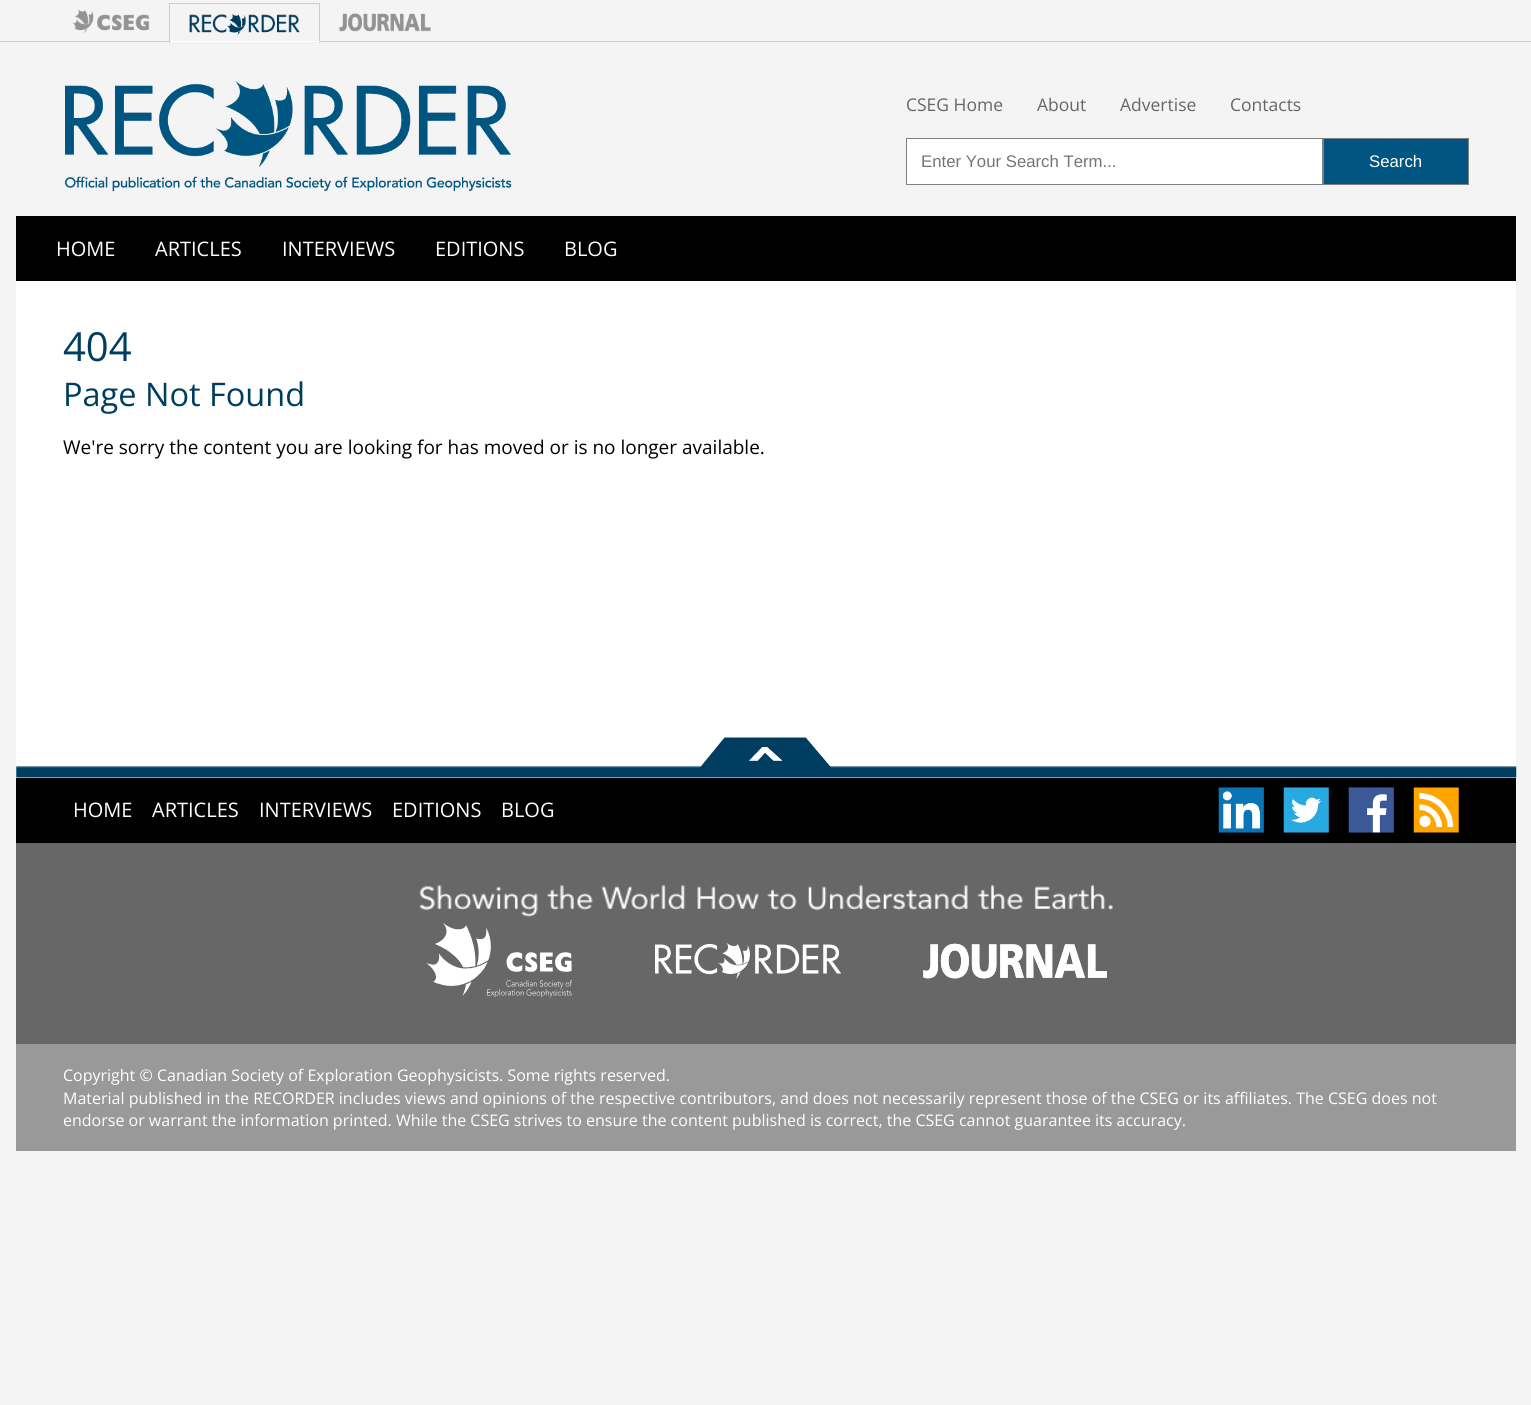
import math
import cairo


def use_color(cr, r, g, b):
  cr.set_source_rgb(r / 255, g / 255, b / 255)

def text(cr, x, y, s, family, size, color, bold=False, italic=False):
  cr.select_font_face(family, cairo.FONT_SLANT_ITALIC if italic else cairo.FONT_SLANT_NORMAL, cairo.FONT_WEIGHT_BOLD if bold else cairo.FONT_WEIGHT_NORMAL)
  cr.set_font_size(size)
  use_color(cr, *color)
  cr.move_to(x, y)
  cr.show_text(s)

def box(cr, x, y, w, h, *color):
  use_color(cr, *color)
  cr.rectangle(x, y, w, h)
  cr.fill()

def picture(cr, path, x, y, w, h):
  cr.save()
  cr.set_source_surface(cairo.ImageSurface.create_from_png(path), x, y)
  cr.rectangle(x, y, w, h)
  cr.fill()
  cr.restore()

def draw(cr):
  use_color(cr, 244, 244, 244)
  cr.paint()
  box(cr, 0, 41, 1531, 1, 204, 204, 204)
  picture(cr, "img_01.png", 72, 9, 78, 24)
  box(cr, 170, 41, 149, 1, 244, 244, 244)
  box(cr, 169, 3, 151, 1, 204, 204, 204)
  box(cr, 319, 3, 1, 40, 204, 204, 204)
  box(cr, 169, 41, 151, 1, 255, 255, 255)
  box(cr, 169, 3, 1, 40, 204, 204, 204)
  picture(cr, "img_02.png", 189, 14, 111, 21)
  picture(cr, "img_03.png", 339, 13, 92, 19)
  picture(cr, "img_04.png", 65, 81, 447, 111)
  use_color(cr, 255, 255, 255)
  cr.rectangle(906.5, 138.5, 416, 46)
  cr.fill_preserve()
  use_color(cr, 128, 128, 128)
  cr.set_line_width(1)
  cr.stroke()
  use_color(cr, 0, 85, 129)
  cr.rectangle(1323.5, 138.5, 145, 46)
  cr.fill_preserve()
  use_color(cr, 128, 128, 128)
  cr.stroke()
  box(cr, 16, 216, 1500, 65, 0, 0, 0)
  box(cr, 16, 281, 1500, 497, 255, 255, 255)
  picture(cr, "img_05.png", 16, 766, 1501, 12)
  picture(cr, "img_06.png", 700, 737, 131, 31)
  box(cr, 16, 778, 1500, 65, 0, 0, 0)
  picture(cr, "img_07.png", 1218, 787, 46, 46)
  picture(cr, "img_08.png", 1283, 787, 46, 46)
  picture(cr, "img_09.png", 1348, 787, 46, 46)
  picture(cr, "img_10.png", 1413, 787, 46, 46)
  box(cr, 16, 843, 1500, 201, 103, 103, 103)
  picture(cr, "img_11.png", 419, 884, 694, 33)
  picture(cr, "img_12.png", 426, 923, 147, 75)
  picture(cr, "img_13.png", 655, 942, 186, 37)
  picture(cr, "img_14.png", 923, 943, 184, 36)
  box(cr, 16, 1044, 1500, 107, 153, 153, 153)
  text(cr, 906, 111, "CSEG Home", "Open Sans", 17.5, (102, 102, 102))
  text(cr, 1037, 111, "About", "Open Sans", 17.5, (102, 102, 102))
  text(cr, 1120, 111, "Advertise", "Open Sans", 17.5, (102, 102, 102))
  text(cr, 1230, 111, "Contacts", "Open Sans", 17.5, (102, 102, 102))
  text(cr, 921, 167, "Enter Your Search Term...", "Liberation Sans", 16.75, (117, 117, 117))
  text(cr, 1369, 167, "Search", "Liberation Sans", 16.75, (255, 255, 255))
  text(cr, 56, 256, "HOME", "Open Sans", 20, (255, 255, 255))
  text(cr, 155, 256, "ARTICLES", "Open Sans", 20, (255, 255, 255))
  text(cr, 282, 256, "INTERVIEWS", "Open Sans", 20, (255, 255, 255))
  text(cr, 435, 256, "EDITIONS", "Open Sans", 20, (255, 255, 255))
  text(cr, 564, 256, "BLOG", "Open Sans", 20, (255, 255, 255))
  text(cr, 63, 361, "404", "Open Sans", 40, (0, 62, 97))
  text(cr, 63, 406, "Page Not Found", "Open Sans", 32.5, (0, 62, 97))
  text(cr, 63, 454, "We're sorry the content you are looking for has moved or is no longer available.", "Open Sans", 19, (0, 0, 0))
  text(cr, 73, 817, "HOME", "Open Sans", 20, (255, 255, 255))
  text(cr, 152, 817, "ARTICLES", "Open Sans", 20, (255, 255, 255))
  text(cr, 259, 817, "INTERVIEWS", "Open Sans", 20, (255, 255, 255))
  text(cr, 392, 817, "EDITIONS", "Open Sans", 20, (255, 255, 255))
  text(cr, 501, 817, "BLOG", "Open Sans", 20, (255, 255, 255))
  text(cr, 63, 1081, "Copyright © Canadian Society of Exploration Geophysicists. Some rights reserved.", "Open Sans", 16, (255, 255, 255))
  text(cr, 63, 1104, "Material published in the RECORDER includes views and opinions of the respective contributors, and does not necessarily represent those of the CSEG or its affiliates. The CSEG does not", "Open Sans", 16, (255, 255, 255))
  text(cr, 63, 1126, "endorse or warrant the information printed. While the CSEG strives to ensure the content published is correct, the CSEG cannot guarantee its accuracy.", "Open Sans", 16, (255, 255, 255))


surface = cairo.ImageSurface(cairo.FORMAT_RGB24, 1531, 1405)
cr = cairo.Context(surface)
options = cairo.FontOptions()
options.set_hint_metrics(cairo.HINT_METRICS_OFF)
options.set_hint_style(cairo.HINT_STYLE_NONE)
cr.set_font_options(options)
cr.set_miter_limit(4)
draw(cr)
surface.write_to_png("out.png")
